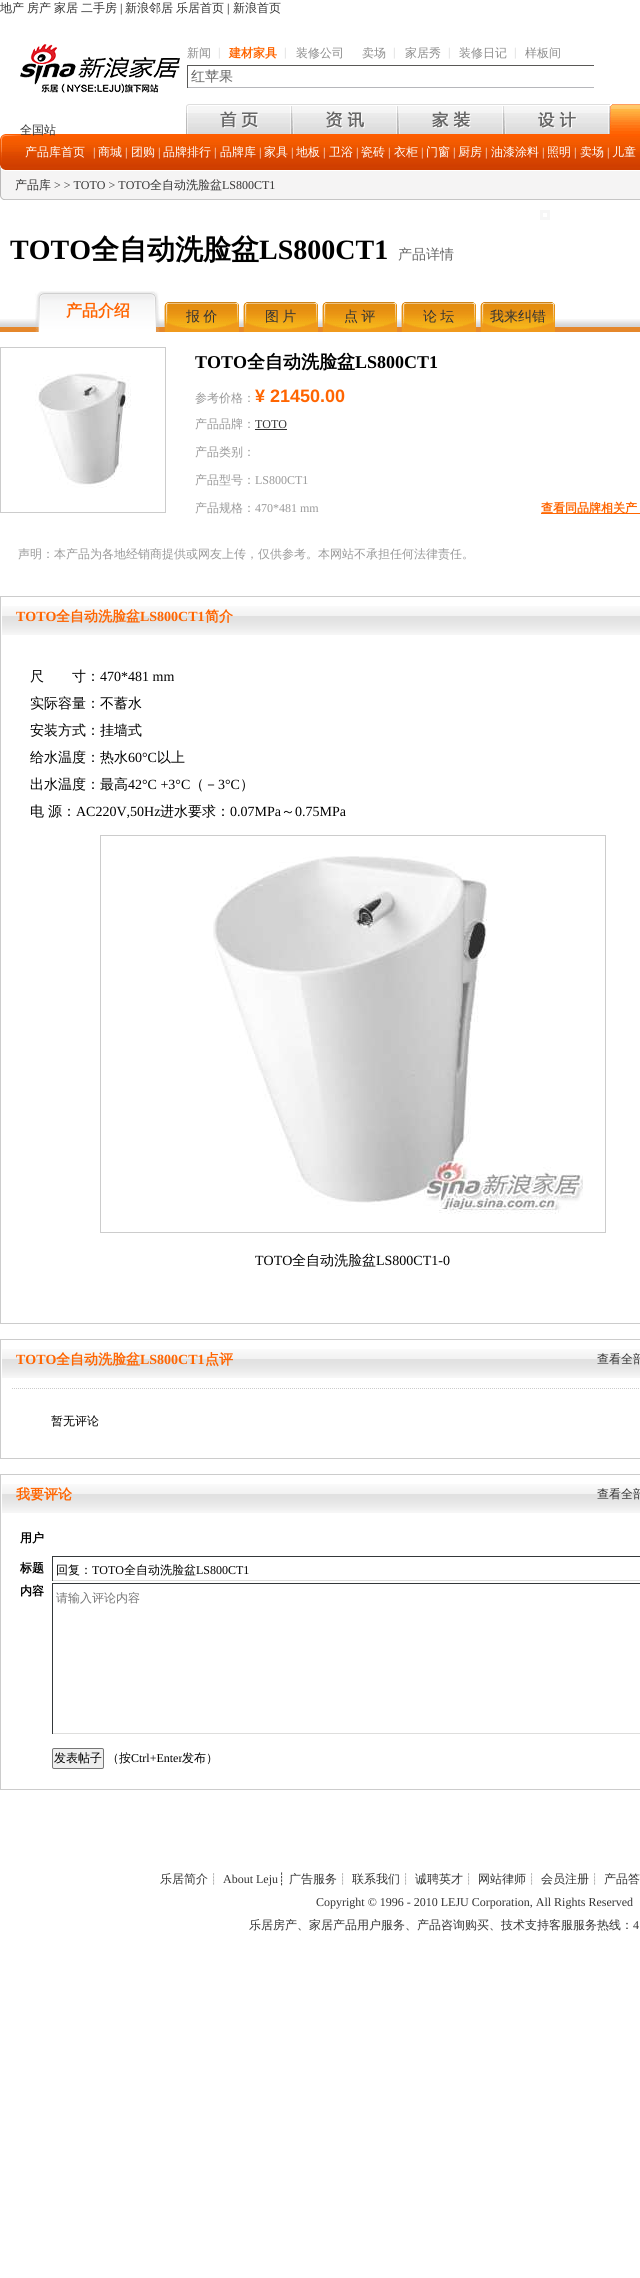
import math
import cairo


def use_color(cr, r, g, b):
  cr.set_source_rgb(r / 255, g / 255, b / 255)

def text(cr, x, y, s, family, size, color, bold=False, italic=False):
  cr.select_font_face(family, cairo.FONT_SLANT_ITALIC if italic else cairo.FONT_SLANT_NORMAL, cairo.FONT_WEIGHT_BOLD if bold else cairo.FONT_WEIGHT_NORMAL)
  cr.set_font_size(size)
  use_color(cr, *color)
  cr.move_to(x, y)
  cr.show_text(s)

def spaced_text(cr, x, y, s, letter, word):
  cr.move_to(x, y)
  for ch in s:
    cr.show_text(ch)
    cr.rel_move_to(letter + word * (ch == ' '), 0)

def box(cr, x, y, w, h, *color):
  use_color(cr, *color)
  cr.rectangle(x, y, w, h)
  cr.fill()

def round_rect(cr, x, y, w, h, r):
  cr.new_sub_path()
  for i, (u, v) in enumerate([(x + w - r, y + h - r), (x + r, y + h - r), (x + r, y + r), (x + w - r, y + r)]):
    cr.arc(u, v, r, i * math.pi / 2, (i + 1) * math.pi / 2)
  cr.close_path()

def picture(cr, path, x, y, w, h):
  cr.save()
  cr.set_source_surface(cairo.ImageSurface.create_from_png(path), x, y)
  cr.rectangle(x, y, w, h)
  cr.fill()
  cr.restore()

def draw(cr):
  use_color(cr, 255, 255, 255)
  cr.paint()
  box(cr, 187, 65, 407, 1, 89, 88, 86)
  box(cr, 187, 87, 407, 1, 182, 183, 187)
  box(cr, 187, 65, 1, 23, 89, 88, 86)
  picture(cr, "img_01.png", 20, 44, 160, 49)
  picture(cr, "img_02.png", 186, 104, 106, 30)
  picture(cr, "img_03.png", 292, 104, 106, 30)
  picture(cr, "img_04.png", 398, 104, 106, 30)
  picture(cr, "img_05.png", 504, 104, 106, 30)
  picture(cr, "img_06.png", 610, 104, 30, 30)
  picture(cr, "img_07.png", 0, 134, 640, 36)
  picture(cr, "img_08.png", 0, 170, 640, 30)
  cr.rectangle(541.5, 211.5, 7, 7)
  use_color(cr, 246, 246, 246)
  cr.set_line_width(3)
  cr.stroke()
  picture(cr, "img_09.png", 0, 319, 640, 13)
  picture(cr, "img_10.png", 35, 291, 125, 41)
  picture(cr, "img_11.png", 164, 302, 75, 30)
  picture(cr, "img_11.png", 243, 302, 75, 30)
  picture(cr, "img_11.png", 322, 302, 75, 30)
  picture(cr, "img_11.png", 401, 302, 75, 30)
  picture(cr, "img_11.png", 480, 302, 75, 30)
  cr.rectangle(0.5, 347.5, 165, 165)
  use_color(cr, 204, 204, 204)
  cr.set_line_width(1)
  cr.stroke()
  picture(cr, "img_12.png", 35, 372, 96, 116)
  box(cr, 255, 429, 32, 1, 51, 51, 51)
  box(cr, 541, 513, 99, 1, 255, 102, 0)
  cr.rectangle(0.5, 596.5, 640, 727)
  use_color(cr, 204, 204, 204)
  cr.stroke()
  picture(cr, "img_13.png", 2, 606, 638, 29)
  cr.rectangle(100.5, 835.5, 505, 397)
  cr.stroke()
  picture(cr, "img_14.png", 213, 856, 370, 358)
  cr.rectangle(0.5, 1339.5, 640, 119)
  cr.stroke()
  picture(cr, "img_13.png", 2, 1349, 638, 29)
  cr.new_path()
  cr.move_to(12, 1388.5)
  cr.line_to(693, 1388.5)
  cr.set_dash([1, 1])
  cr.stroke()
  cr.rectangle(0.5, 1474.5, 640, 315)
  cr.set_dash([])
  cr.stroke()
  picture(cr, "img_13.png", 2, 1484, 638, 29)
  box(cr, 52, 1556, 588, 1, 52, 56, 58)
  box(cr, 52, 1580, 588, 1, 222, 222, 221)
  box(cr, 52, 1556, 1, 25, 52, 56, 58)
  box(cr, 52, 1583, 588, 1, 52, 56, 58)
  box(cr, 52, 1733, 588, 1, 222, 222, 221)
  box(cr, 52, 1583, 1, 151, 52, 56, 58)
  use_color(cr, 239, 239, 239)
  round_rect(cr, 52.5, 1748.5, 51, 20, 1.5)
  cr.fill_preserve()
  use_color(cr, 118, 118, 118)
  cr.stroke()
  text(cr, 0, 12, "地产", "WenQuanYi Zen Hei Medium", 12, (51, 51, 51))
  text(cr, 27, 12, "房产", "WenQuanYi Zen Hei Medium", 12, (51, 51, 51))
  text(cr, 54, 12, "家居", "WenQuanYi Zen Hei Medium", 12, (51, 51, 51))
  text(cr, 81, 12, "二手房", "WenQuanYi Zen Hei Medium", 12, (51, 51, 51))
  text(cr, 120, 12, "|", "Liberation Serif", 12, (0, 0, 0))
  text(cr, 125, 12, "新浪邻居", "WenQuanYi Zen Hei Medium", 12, (51, 51, 51))
  text(cr, 176, 12, "乐居首页", "WenQuanYi Zen Hei Medium", 12, (51, 51, 51))
  text(cr, 227, 12, "|", "Liberation Serif", 12, (0, 0, 0))
  text(cr, 233, 12, "新浪首页", "WenQuanYi Zen Hei Medium", 12, (51, 51, 51))
  text(cr, 187, 57, "新闻", "WenQuanYi Zen Hei Medium", 12, (140, 140, 140))
  text(cr, 218, 56, "|", "Liberation Serif", 12, (209, 209, 209))
  text(cr, 229, 57, "建材家具", "WenQuanYi Zen Hei", 12, (255, 101, 1), bold=True)
  text(cr, 284, 56, "|", "Liberation Serif", 12, (209, 209, 209))
  text(cr, 296, 57, "装修公司", "WenQuanYi Zen Hei Medium", 12, (140, 140, 140))
  text(cr, 362, 57, "卖场", "WenQuanYi Zen Hei Medium", 12, (140, 140, 140))
  text(cr, 393, 56, "|", "Liberation Serif", 12, (209, 209, 209))
  text(cr, 405, 57, "家居秀", "WenQuanYi Zen Hei Medium", 12, (140, 140, 140))
  text(cr, 448, 56, "|", "Liberation Serif", 12, (209, 209, 209))
  text(cr, 459, 57, "装修日记", "WenQuanYi Zen Hei Medium", 12, (140, 140, 140))
  text(cr, 514, 56, "|", "Liberation Serif", 12, (209, 209, 209))
  text(cr, 525, 57, "样板间", "WenQuanYi Zen Hei Medium", 12, (140, 140, 140))
  text(cr, 191, 81, "红苹果", "WenQuanYi Zen Hei Medium", 14, (102, 102, 102))
  text(cr, 20, 134, "全国站", "WenQuanYi Zen Hei Medium", 12, (51, 51, 51))
  text(cr, 25, 156, "产品库首页", "WenQuanYi Zen Hei Medium", 12, (255, 255, 255))
  text(cr, 93, 156, "|", "Liberation Serif", 12, (255, 255, 255))
  text(cr, 98, 156, "商城", "WenQuanYi Zen Hei Medium", 12, (255, 255, 255))
  text(cr, 125, 156, "|", "Liberation Serif", 12, (255, 255, 255))
  text(cr, 131, 156, "团购", "WenQuanYi Zen Hei Medium", 12, (255, 255, 255))
  text(cr, 158, 156, "|", "Liberation Serif", 12, (255, 255, 255))
  text(cr, 163, 156, "品牌排行", "WenQuanYi Zen Hei Medium", 12, (255, 255, 255))
  text(cr, 214, 156, "|", "Liberation Serif", 12, (255, 255, 255))
  text(cr, 220, 156, "品牌库", "WenQuanYi Zen Hei Medium", 12, (255, 255, 255))
  text(cr, 259, 156, "|", "Liberation Serif", 12, (255, 255, 255))
  text(cr, 264, 156, "家具", "WenQuanYi Zen Hei Medium", 12, (255, 255, 255))
  text(cr, 291, 156, "|", "Liberation Serif", 12, (255, 255, 255))
  text(cr, 296, 156, "地板", "WenQuanYi Zen Hei Medium", 12, (255, 255, 255))
  text(cr, 323, 156, "|", "Liberation Serif", 12, (255, 255, 255))
  text(cr, 329, 156, "卫浴", "WenQuanYi Zen Hei Medium", 12, (255, 255, 255))
  text(cr, 356, 156, "|", "Liberation Serif", 12, (255, 255, 255))
  text(cr, 361, 156, "瓷砖", "WenQuanYi Zen Hei Medium", 12, (255, 255, 255))
  text(cr, 388, 156, "|", "Liberation Serif", 12, (255, 255, 255))
  text(cr, 394, 156, "衣柜", "WenQuanYi Zen Hei Medium", 12, (255, 255, 255))
  text(cr, 421, 156, "|", "Liberation Serif", 12, (255, 255, 255))
  text(cr, 426, 156, "门窗", "WenQuanYi Zen Hei Medium", 12, (255, 255, 255))
  text(cr, 453, 156, "|", "Liberation Serif", 12, (255, 255, 255))
  text(cr, 458, 156, "厨房", "WenQuanYi Zen Hei Medium", 12, (255, 255, 255))
  text(cr, 485, 156, "|", "Liberation Serif", 12, (255, 255, 255))
  text(cr, 491, 156, "油漆涂料", "WenQuanYi Zen Hei Medium", 12, (255, 255, 255))
  text(cr, 542, 156, "|", "Liberation Serif", 12, (255, 255, 255))
  text(cr, 547, 156, "照明", "WenQuanYi Zen Hei Medium", 12, (255, 255, 255))
  text(cr, 574, 156, "|", "Liberation Serif", 12, (255, 255, 255))
  text(cr, 580, 156, "卖场", "WenQuanYi Zen Hei Medium", 12, (255, 255, 255))
  text(cr, 607, 156, "|", "Liberation Serif", 12, (255, 255, 255))
  text(cr, 612, 156, "儿童", "WenQuanYi Zen Hei Medium", 12, (255, 255, 255))
  text(cr, 15, 189, "产品库", "WenQuanYi Zen Hei Medium", 12, (51, 51, 51))
  text(cr, 54, 189, "> > TOTO > TOTO", "Liberation Serif", 12, (51, 51, 51))
  text(cr, 150, 189, "全自动洗脸盆", "WenQuanYi Zen Hei Medium", 12, (51, 51, 51))
  text(cr, 222, 189, "LS800CT1", "Liberation Serif", 12, (51, 51, 51))
  text(cr, 10, 259, "TOTO", "Liberation Serif", 28, (0, 0, 0), bold=True)
  text(cr, 91, 259, "全自动洗脸盆", "WenQuanYi Zen Hei", 28, (0, 0, 0), bold=True)
  text(cr, 259, 259, "LS800CT1", "Liberation Serif", 28, (0, 0, 0), bold=True)
  text(cr, 398, 259, "产品详情", "WenQuanYi Zen Hei Medium", 14, (102, 102, 102))
  text(cr, 66, 316, "产品介绍", "WenQuanYi Zen Hei", 16, (255, 101, 1), bold=True)
  cr.select_font_face("WenQuanYi Zen Hei Medium")
  cr.set_font_size(14)
  use_color(cr, 51, 51, 51)
  spaced_text(cr, 186, 321, "报 价", 0, -1)
  spaced_text(cr, 265, 321, "图 片", 0, -1)
  spaced_text(cr, 344, 321, "点 评", 0, -1)
  spaced_text(cr, 423, 321, "论 坛", 0, -1)
  text(cr, 490, 321, "我来纠错", "WenQuanYi Zen Hei Medium", 14, (51, 51, 51))
  text(cr, 195, 368, "TOTO", "Liberation Serif", 18, (0, 0, 0), bold=True)
  text(cr, 247, 368, "全自动洗脸盆", "WenQuanYi Zen Hei", 18, (0, 0, 0), bold=True)
  text(cr, 355, 368, "LS800CT1", "Liberation Serif", 18, (0, 0, 0), bold=True)
  text(cr, 195, 402, "参考价格：", "WenQuanYi Zen Hei Medium", 12, (153, 153, 153))
  text(cr, 255, 402, "¥ 21450.00", "Liberation Sans", 18, (255, 101, 1), bold=True)
  text(cr, 195, 428, "产品品牌：", "WenQuanYi Zen Hei Medium", 12, (153, 153, 153))
  text(cr, 255, 428, "TOTO", "Liberation Serif", 12, (51, 51, 51))
  text(cr, 195, 456, "产品类别：", "WenQuanYi Zen Hei Medium", 12, (153, 153, 153))
  text(cr, 195, 484, "产品型号：", "WenQuanYi Zen Hei Medium", 12, (153, 153, 153))
  text(cr, 255, 484, "LS800CT1", "Liberation Serif", 12, (153, 153, 153))
  text(cr, 195, 512, "产品规格：", "WenQuanYi Zen Hei Medium", 12, (153, 153, 153))
  text(cr, 255, 512, "470*481 mm", "Liberation Serif", 12, (153, 153, 153))
  text(cr, 541, 512, "查看同品牌相关产", "WenQuanYi Zen Hei", 12, (255, 101, 1), bold=True)
  text(cr, 18, 558, "声明：本产品为各地经销商提供或网友上传，仅供参考。本网站不承担任何法律责任。", "WenQuanYi Zen Hei Medium", 12, (153, 153, 153))
  text(cr, 16, 621, "TOTO", "Liberation Serif", 14, (255, 101, 1), bold=True)
  text(cr, 56, 621, "全自动洗脸盆", "WenQuanYi Zen Hei", 14, (255, 101, 1), bold=True)
  text(cr, 140, 621, "LS800CT1", "Liberation Serif", 14, (255, 101, 1), bold=True)
  text(cr, 205, 621, "简介", "WenQuanYi Zen Hei", 14, (255, 101, 1), bold=True)
  text(cr, 30, 681, "尺　　寸：", "WenQuanYi Zen Hei Medium", 14, (0, 0, 0))
  text(cr, 100, 681, "470*481 mm", "Liberation Serif", 14, (0, 0, 0))
  text(cr, 30, 708, "实际容量：不蓄水", "WenQuanYi Zen Hei Medium", 14, (0, 0, 0))
  text(cr, 30, 735, "安装方式：挂墙式", "WenQuanYi Zen Hei Medium", 14, (0, 0, 0))
  text(cr, 30, 762, "给水温度：热水", "WenQuanYi Zen Hei Medium", 14, (0, 0, 0))
  text(cr, 128, 762, "60°C", "Liberation Serif", 14, (0, 0, 0))
  text(cr, 157, 762, "以上", "WenQuanYi Zen Hei Medium", 14, (0, 0, 0))
  text(cr, 30, 789, "出水温度：最高", "WenQuanYi Zen Hei Medium", 14, (0, 0, 0))
  text(cr, 128, 789, "42°C +3°C", "Liberation Serif", 14, (0, 0, 0))
  text(cr, 190, 789, "（－", "WenQuanYi Zen Hei Medium", 14, (0, 0, 0))
  text(cr, 218, 789, "3°C", "Liberation Serif", 14, (0, 0, 0))
  text(cr, 240, 789, "）", "WenQuanYi Zen Hei Medium", 14, (0, 0, 0))
  text(cr, 30, 816, "电", "WenQuanYi Zen Hei Medium", 14, (0, 0, 0))
  text(cr, 48, 816, "源：", "WenQuanYi Zen Hei Medium", 14, (0, 0, 0))
  text(cr, 76, 816, "AC220V,50Hz", "Liberation Serif", 14, (0, 0, 0))
  text(cr, 160, 816, "进水要求：", "WenQuanYi Zen Hei Medium", 14, (0, 0, 0))
  text(cr, 230, 816, "0.07MPa", "Liberation Serif", 14, (0, 0, 0))
  text(cr, 281, 816, "～", "WenQuanYi Zen Hei Medium", 14, (0, 0, 0))
  text(cr, 295, 816, "0.75MPa", "Liberation Serif", 14, (0, 0, 0))
  text(cr, 255, 1265, "TOTO", "Liberation Serif", 14, (0, 0, 0))
  text(cr, 292, 1265, "全自动洗脸盆", "WenQuanYi Zen Hei Medium", 14, (0, 0, 0))
  text(cr, 376, 1265, "LS800CT1-0", "Liberation Serif", 14, (0, 0, 0))
  text(cr, 16, 1364, "TOTO", "Liberation Serif", 14, (255, 101, 1), bold=True)
  text(cr, 56, 1364, "全自动洗脸盆", "WenQuanYi Zen Hei", 14, (255, 101, 1), bold=True)
  text(cr, 140, 1364, "LS800CT1", "Liberation Serif", 14, (255, 101, 1), bold=True)
  text(cr, 205, 1364, "点评", "WenQuanYi Zen Hei", 14, (255, 101, 1), bold=True)
  text(cr, 597, 1363, "查看全部", "WenQuanYi Zen Hei Medium", 12, (51, 51, 51))
  text(cr, 51, 1425, "暂无评论", "WenQuanYi Zen Hei Medium", 12, (0, 0, 0))
  text(cr, 16, 1499, "我要评论", "WenQuanYi Zen Hei", 14, (255, 101, 1), bold=True)
  text(cr, 597, 1498, "查看全部", "WenQuanYi Zen Hei Medium", 12, (51, 51, 51))
  text(cr, 20, 1542, "用户", "WenQuanYi Zen Hei", 12, (0, 0, 0), bold=True)
  text(cr, 20, 1572, "标题", "WenQuanYi Zen Hei", 12, (0, 0, 0), bold=True)
  text(cr, 56, 1574, "回复：", "WenQuanYi Zen Hei Medium", 12, (0, 0, 0))
  text(cr, 92, 1574, "TOTO", "Liberation Serif", 12, (0, 0, 0))
  text(cr, 124, 1574, "全自动洗脸盆", "WenQuanYi Zen Hei Medium", 12, (0, 0, 0))
  text(cr, 196, 1574, "LS800CT1", "Liberation Serif", 12, (0, 0, 0))
  text(cr, 20, 1595, "内容", "WenQuanYi Zen Hei", 12, (0, 0, 0), bold=True)
  text(cr, 56, 1602, "请输入评论内容", "WenQuanYi Zen Hei Medium", 12, (117, 117, 117))
  text(cr, 54, 1762, "发表帖子", "WenQuanYi Zen Hei Medium", 12, (0, 0, 0))
  text(cr, 107, 1762, "（按", "WenQuanYi Zen Hei Medium", 12, (0, 0, 0))
  text(cr, 131, 1762, "Ctrl+Enter", "Liberation Serif", 12, (0, 0, 0))
  text(cr, 182, 1762, "发布）", "WenQuanYi Zen Hei Medium", 12, (0, 0, 0))
  text(cr, 160, 1883, "乐居简介┊", "WenQuanYi Zen Hei Medium", 12, (51, 51, 51))
  text(cr, 223, 1883, "About Leju", "Liberation Serif", 12, (51, 51, 51))
  text(cr, 278, 1883, "┊", "DejaVu Sans", 12, (51, 51, 51))
  text(cr, 289, 1883, "广告服务┊", "WenQuanYi Zen Hei Medium", 12, (51, 51, 51))
  text(cr, 352, 1883, "联系我们┊", "WenQuanYi Zen Hei Medium", 12, (51, 51, 51))
  text(cr, 415, 1883, "诚聘英才┊", "WenQuanYi Zen Hei Medium", 12, (51, 51, 51))
  text(cr, 478, 1883, "网站律师┊", "WenQuanYi Zen Hei Medium", 12, (51, 51, 51))
  text(cr, 541, 1883, "会员注册┊", "WenQuanYi Zen Hei Medium", 12, (51, 51, 51))
  text(cr, 604, 1883, "产品答", "WenQuanYi Zen Hei Medium", 12, (51, 51, 51))
  text(cr, 316, 1906, "Copyright © 1996 - 2010 LEJU Corporation, All Rights Reserved", "Liberation Serif", 12, (51, 51, 51))
  text(cr, 249, 1929, "乐居房产、家居产品用户服务、产品咨询购买、技术支持客服服务热线：", "WenQuanYi Zen Hei Medium", 12, (51, 51, 51))
  text(cr, 633, 1929, "4", "Liberation Serif", 12, (51, 51, 51))


surface = cairo.ImageSurface(cairo.FORMAT_RGB24, 640, 2278)
cr = cairo.Context(surface)
options = cairo.FontOptions()
options.set_hint_metrics(cairo.HINT_METRICS_OFF)
options.set_hint_style(cairo.HINT_STYLE_NONE)
cr.set_font_options(options)
cr.set_miter_limit(4)
draw(cr)
surface.write_to_png("out.png")
